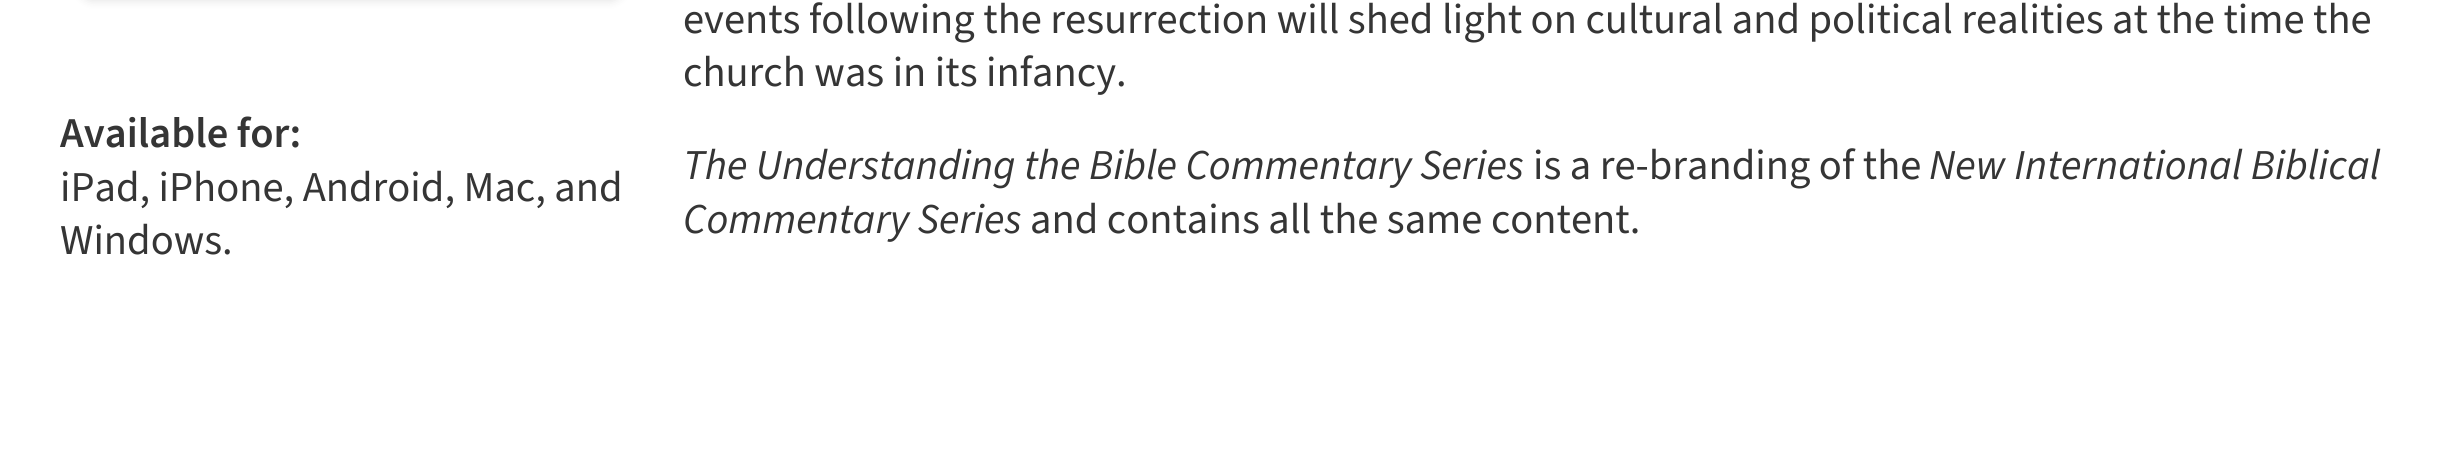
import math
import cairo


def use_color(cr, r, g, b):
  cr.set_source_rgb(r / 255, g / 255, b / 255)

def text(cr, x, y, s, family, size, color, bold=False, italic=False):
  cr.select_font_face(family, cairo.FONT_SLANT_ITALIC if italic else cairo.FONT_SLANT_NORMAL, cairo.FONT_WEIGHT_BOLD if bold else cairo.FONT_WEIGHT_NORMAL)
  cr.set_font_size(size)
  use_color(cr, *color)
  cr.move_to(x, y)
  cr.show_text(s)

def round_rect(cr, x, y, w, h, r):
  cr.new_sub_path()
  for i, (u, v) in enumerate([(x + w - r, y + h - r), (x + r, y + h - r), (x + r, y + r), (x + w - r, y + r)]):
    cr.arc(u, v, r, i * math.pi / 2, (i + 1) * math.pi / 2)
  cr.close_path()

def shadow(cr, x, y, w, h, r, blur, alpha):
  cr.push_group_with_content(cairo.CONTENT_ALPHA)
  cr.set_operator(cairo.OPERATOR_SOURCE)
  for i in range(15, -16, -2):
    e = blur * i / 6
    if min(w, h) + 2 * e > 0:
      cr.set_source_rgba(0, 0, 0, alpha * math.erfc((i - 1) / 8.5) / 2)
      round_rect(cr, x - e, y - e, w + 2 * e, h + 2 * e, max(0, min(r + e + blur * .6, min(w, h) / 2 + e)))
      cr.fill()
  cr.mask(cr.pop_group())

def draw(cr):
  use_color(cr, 255, 255, 255)
  cr.paint()
  use_color(cr, 0, 0, 0)
  shadow(cr, 80, -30, 543, 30, 15, 5, 0.13)
  text(cr, 60, 147, "Available for:", "Source Sans 3 SemiBold", 42.5, (53, 53, 53))
  text(cr, 60, 201, "iPad, iPhone, Android, Mac, and", "Source Sans 3", 42.5, (53, 53, 53))
  text(cr, 60, 254, "Windows.", "Source Sans 3", 42.5, (53, 53, 53))
  text(cr, 683, 33, "events following the resurrection will shed light on cultural and political realities at the time the", "Source Sans 3", 42.5, (53, 53, 53))
  text(cr, 683, 86, "church was in its infancy.", "Source Sans 3", 42.5, (53, 53, 53))
  text(cr, 683, 179, "The Understanding the Bible Commentary Series", "Source Sans 3", 42.5, (53, 53, 53), italic=True)
  text(cr, 1533, 179, "is a re-branding of the", "Source Sans 3", 42.5, (53, 53, 53))
  text(cr, 1929, 179, "New International Biblical", "Source Sans 3", 42.5, (53, 53, 53), italic=True)
  text(cr, 683, 233, "Commentary Series", "Source Sans 3", 42.5, (53, 53, 53), italic=True)
  text(cr, 1030, 233, "and contains all the same content.", "Source Sans 3", 42.5, (53, 53, 53))


surface = cairo.ImageSurface(cairo.FORMAT_RGB24, 2451, 460)
cr = cairo.Context(surface)
options = cairo.FontOptions()
options.set_hint_metrics(cairo.HINT_METRICS_OFF)
options.set_hint_style(cairo.HINT_STYLE_NONE)
cr.set_font_options(options)
cr.set_miter_limit(4)
draw(cr)
surface.write_to_png("out.png")
